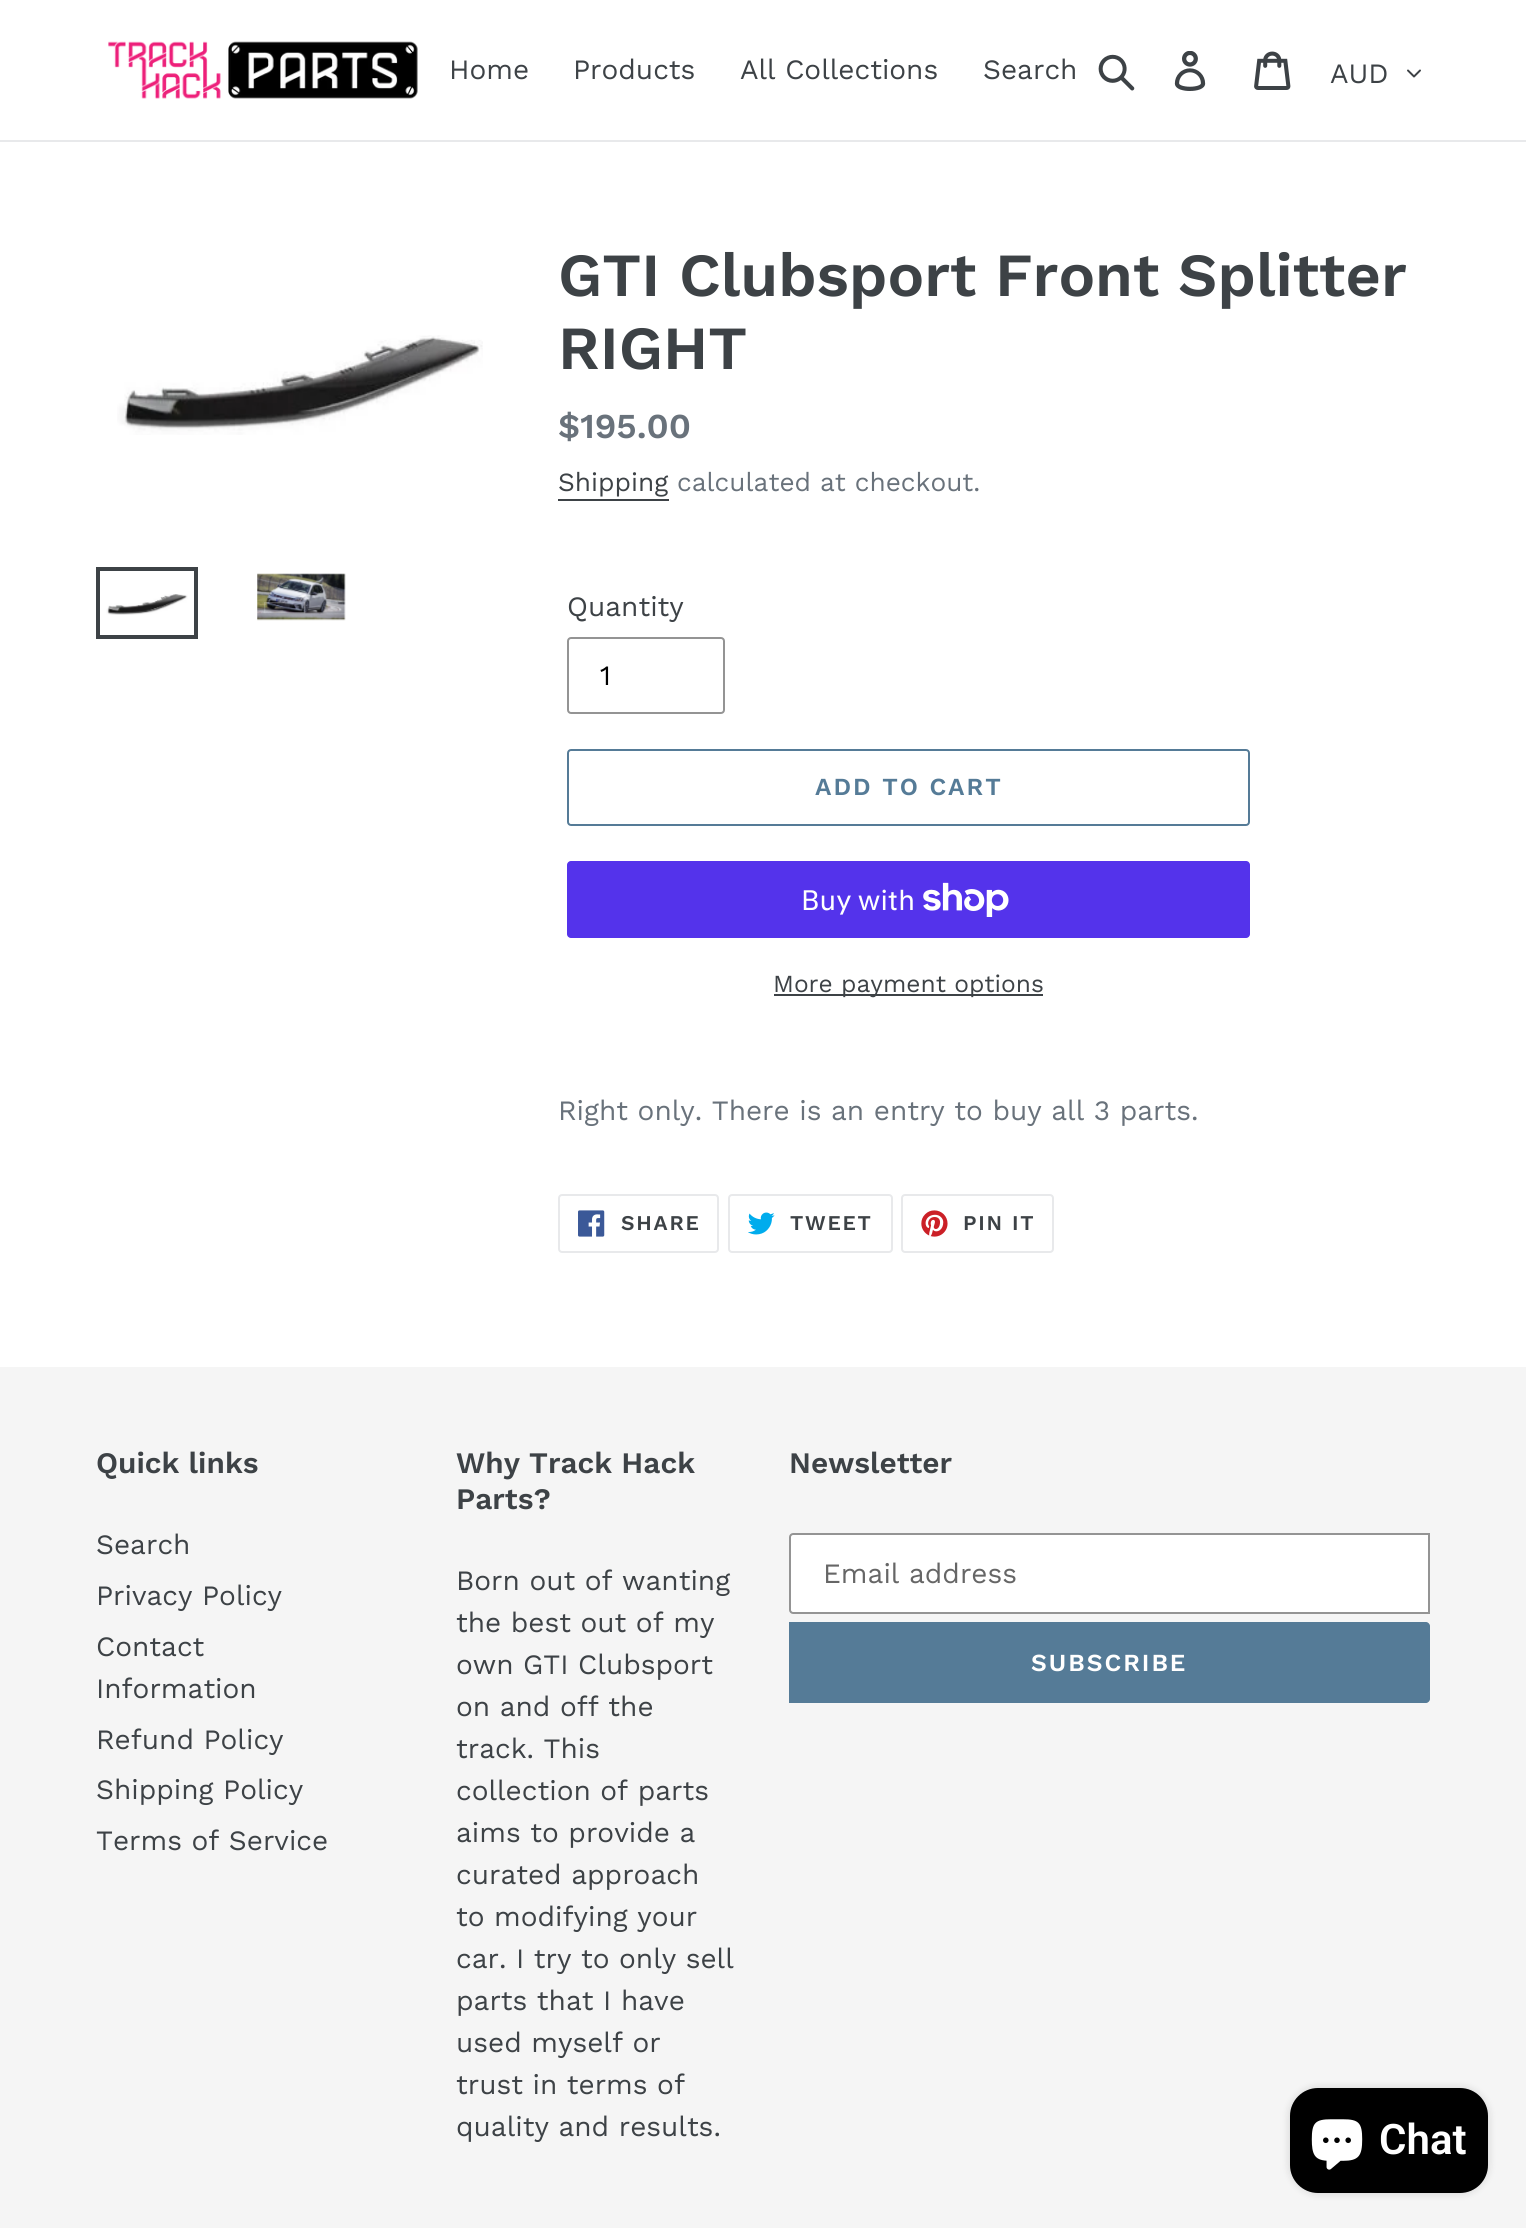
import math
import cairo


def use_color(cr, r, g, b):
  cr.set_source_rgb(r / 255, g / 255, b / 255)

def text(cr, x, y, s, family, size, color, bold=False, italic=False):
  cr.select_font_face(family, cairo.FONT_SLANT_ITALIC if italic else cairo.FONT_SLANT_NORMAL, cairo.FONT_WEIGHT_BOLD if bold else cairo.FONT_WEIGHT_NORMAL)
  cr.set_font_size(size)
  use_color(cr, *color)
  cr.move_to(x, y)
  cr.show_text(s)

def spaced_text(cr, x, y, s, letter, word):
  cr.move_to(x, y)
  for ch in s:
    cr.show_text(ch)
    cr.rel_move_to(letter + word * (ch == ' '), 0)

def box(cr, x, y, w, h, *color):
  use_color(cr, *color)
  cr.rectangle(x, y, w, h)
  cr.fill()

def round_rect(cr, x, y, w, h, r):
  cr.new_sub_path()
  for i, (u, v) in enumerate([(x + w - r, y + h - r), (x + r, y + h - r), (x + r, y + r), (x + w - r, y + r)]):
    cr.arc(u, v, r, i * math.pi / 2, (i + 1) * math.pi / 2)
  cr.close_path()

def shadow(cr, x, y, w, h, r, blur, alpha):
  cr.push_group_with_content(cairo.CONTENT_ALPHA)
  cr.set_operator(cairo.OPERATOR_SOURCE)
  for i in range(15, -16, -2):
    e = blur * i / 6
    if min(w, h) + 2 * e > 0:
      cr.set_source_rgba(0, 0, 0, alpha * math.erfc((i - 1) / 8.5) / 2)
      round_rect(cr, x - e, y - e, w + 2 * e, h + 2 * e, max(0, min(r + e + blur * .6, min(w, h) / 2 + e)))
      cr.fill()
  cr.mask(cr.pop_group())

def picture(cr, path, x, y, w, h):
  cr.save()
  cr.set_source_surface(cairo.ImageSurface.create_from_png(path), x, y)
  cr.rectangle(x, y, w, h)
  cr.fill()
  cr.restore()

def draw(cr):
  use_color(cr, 255, 255, 255)
  cr.paint()
  box(cr, 0, 140, 1526, 2, 232, 233, 235)
  picture(cr, "img_01.png", 108, 41, 310, 58)
  picture(cr, "img_02.png", 1098, 54, 37, 37)
  picture(cr, "img_03.png", 1174, 51, 32, 40)
  picture(cr, "img_04.png", 1254, 51, 37, 39)
  picture(cr, "img_05.png", 1407, 69, 14, 9)
  picture(cr, "img_06.png", 117, 335, 366, 100)
  cr.rectangle(98, 569, 98, 68)
  use_color(cr, 61, 66, 70)
  cr.set_line_width(4)
  cr.stroke()
  picture(cr, "img_07.png", 106, 594, 82, 21)
  picture(cr, "img_08.png", 257, 573, 89, 48)
  box(cr, 558, 499, 111, 2, 61, 66, 70)
  round_rect(cr, 568, 638, 156, 75, 3)
  use_color(cr, 148, 148, 148)
  cr.set_line_width(2)
  cr.stroke()
  round_rect(cr, 568, 750, 681, 75, 3)
  use_color(cr, 85, 123, 151)
  cr.stroke()
  use_color(cr, 84, 51, 235)
  round_rect(cr, 567, 861, 683, 77, 4)
  cr.fill()
  picture(cr, "img_09.png", 923, 882, 86, 35)
  box(cr, 774, 994, 269, 2, 61, 66, 70)
  round_rect(cr, 559, 1195, 159, 57, 3)
  use_color(cr, 232, 233, 235)
  cr.stroke()
  picture(cr, "img_10.png", 578, 1210, 27, 27)
  round_rect(cr, 729, 1195, 163, 57, 3)
  cr.stroke()
  picture(cr, "img_11.png", 748, 1212, 27, 23)
  round_rect(cr, 902, 1195, 151, 57, 3)
  cr.stroke()
  picture(cr, "img_12.png", 921, 1210, 27, 27)
  box(cr, 0, 1367, 1526, 861, 245, 245, 245)
  use_color(cr, 255, 255, 255)
  cr.new_path()
  cr.move_to(793, 1534)
  cr.line_to(1429, 1534)
  cr.line_to(1429, 1613)
  cr.line_to(793, 1613)
  cr.curve_to(791.5, 1613, 790, 1611.5, 790, 1610)
  cr.line_to(790, 1537)
  cr.curve_to(790, 1535.5, 791.5, 1534, 793, 1534)
  cr.close_path()
  cr.fill_preserve()
  use_color(cr, 148, 148, 148)
  cr.stroke()
  use_color(cr, 85, 123, 151)
  cr.new_path()
  cr.move_to(789, 1622)
  cr.line_to(1426, 1622)
  cr.curve_to(1428, 1622, 1430, 1624, 1430, 1626)
  cr.line_to(1430, 1699)
  cr.curve_to(1430, 1701, 1428, 1703, 1426, 1703)
  cr.line_to(789, 1703)
  cr.close_path()
  cr.fill()
  use_color(cr, 0, 0, 0)
  shadow(cr, 1290, 2088, 198, 105, 28, 4.5, 0.15)
  use_color(cr, 0, 0, 0)
  round_rect(cr, 1290, 2088, 198, 105, 28)
  cr.fill()
  picture(cr, "img_13.png", 1311, 2119, 52, 51)
  text(cr, 449, 79, "Home", "Work Sans", 28, (61, 66, 70))
  text(cr, 573, 79, "Products", "Work Sans", 28, (61, 66, 70))
  text(cr, 740, 79, "All Collections", "Work Sans", 28, (61, 66, 70))
  text(cr, 983, 79, "Search", "Work Sans", 28, (61, 66, 70))
  text(cr, 1330, 83, "AUD", "Work Sans", 28, (61, 66, 70))
  text(cr, 558, 296, "GTI Clubsport Front Splitter", "Work Sans SemiBold", 61.25, (61, 66, 70))
  text(cr, 558, 369, "RIGHT", "Work Sans SemiBold", 61.25, (61, 66, 70))
  text(cr, 558, 438, "$195.00", "Work Sans SemiBold", 35, (105, 114, 123))
  text(cr, 558, 491, "Shipping", "Work Sans", 26.25, (61, 66, 70))
  text(cr, 677, 491, "calculated at checkout.", "Work Sans", 26.25, (105, 114, 123))
  text(cr, 567, 616, "Quantity", "Work Sans", 28, (61, 66, 70))
  text(cr, 600, 685, "1", "Work Sans", 28, (0, 0, 0))
  cr.select_font_face("Work Sans SemiBold")
  cr.set_font_size(24.5)
  use_color(cr, 85, 123, 151)
  spaced_text(cr, 815, 795, "ADD TO CART", 2, 0)
  text(cr, 801, 910, "Buy with", "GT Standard", 28, (255, 255, 255))
  text(cr, 773, 992, "More payment options", "Work Sans", 24.5, (61, 66, 70))
  text(cr, 558, 1120, "Right only. There is an entry to buy all 3 parts.", "Work Sans", 28, (105, 114, 123))
  cr.select_font_face("Work Sans SemiBold")
  cr.set_font_size(21)
  use_color(cr, 61, 66, 70)
  spaced_text(cr, 621, 1230, "SHARE", 1.75, 0)
  spaced_text(cr, 790, 1230, "TWEET", 1.75, 0)
  spaced_text(cr, 963, 1230, "PIN IT", 1.75, 0)
  text(cr, 96, 1473, "Quick links", "Work Sans SemiBold", 29.75, (61, 66, 70))
  text(cr, 96, 1554, "Search", "Work Sans", 28, (61, 66, 70))
  text(cr, 96, 1605, "Privacy Policy", "Work Sans", 28, (61, 66, 70))
  text(cr, 96, 1656, "Contact", "Work Sans", 28, (61, 66, 70))
  text(cr, 96, 1698, "Information", "Work Sans", 28, (61, 66, 70))
  text(cr, 96, 1749, "Refund Policy", "Work Sans", 28, (61, 66, 70))
  text(cr, 96, 1799, "Shipping Policy", "Work Sans", 28, (61, 66, 70))
  text(cr, 96, 1850, "Terms of Service", "Work Sans", 28, (61, 66, 70))
  text(cr, 456, 1473, "Why Track Hack", "Work Sans SemiBold", 29.75, (61, 66, 70))
  text(cr, 456, 1509, "Parts?", "Work Sans SemiBold", 29.75, (61, 66, 70))
  text(cr, 456, 1590, "Born out of wanting", "Work Sans", 28, (61, 66, 70))
  text(cr, 456, 1632, "the best out of my", "Work Sans", 28, (61, 66, 70))
  text(cr, 456, 1674, "own GTI Clubsport", "Work Sans", 28, (61, 66, 70))
  text(cr, 456, 1716, "on and off the", "Work Sans", 28, (61, 66, 70))
  text(cr, 456, 1758, "track. This", "Work Sans", 28, (61, 66, 70))
  text(cr, 456, 1800, "collection of parts", "Work Sans", 28, (61, 66, 70))
  text(cr, 456, 1842, "aims to provide a", "Work Sans", 28, (61, 66, 70))
  text(cr, 456, 1884, "curated approach", "Work Sans", 28, (61, 66, 70))
  text(cr, 456, 1926, "to modifying your", "Work Sans", 28, (61, 66, 70))
  text(cr, 456, 1968, "car. I try to only sell", "Work Sans", 28, (61, 66, 70))
  text(cr, 456, 2010, "parts that I have", "Work Sans", 28, (61, 66, 70))
  text(cr, 456, 2052, "used myself or", "Work Sans", 28, (61, 66, 70))
  text(cr, 456, 2094, "trust in terms of", "Work Sans", 28, (61, 66, 70))
  text(cr, 456, 2136, "quality and results.", "Work Sans", 28, (61, 66, 70))
  text(cr, 789, 1473, "Newsletter", "Work Sans SemiBold", 29.75, (61, 66, 70))
  text(cr, 823, 1583, "Email address", "Work Sans", 28, (102, 102, 102))
  cr.select_font_face("Work Sans SemiBold")
  cr.set_font_size(24.5)
  use_color(cr, 255, 255, 255)
  spaced_text(cr, 1031, 1671, "SUBSCRIBE", 2, 0)
  text(cr, 1379, 2154, "Chat", "Roboto SemiBold", 42, (255, 255, 255))


surface = cairo.ImageSurface(cairo.FORMAT_RGB24, 1526, 2228)
cr = cairo.Context(surface)
options = cairo.FontOptions()
options.set_hint_metrics(cairo.HINT_METRICS_OFF)
options.set_hint_style(cairo.HINT_STYLE_NONE)
cr.set_font_options(options)
cr.set_miter_limit(4)
draw(cr)
surface.write_to_png("out.png")
